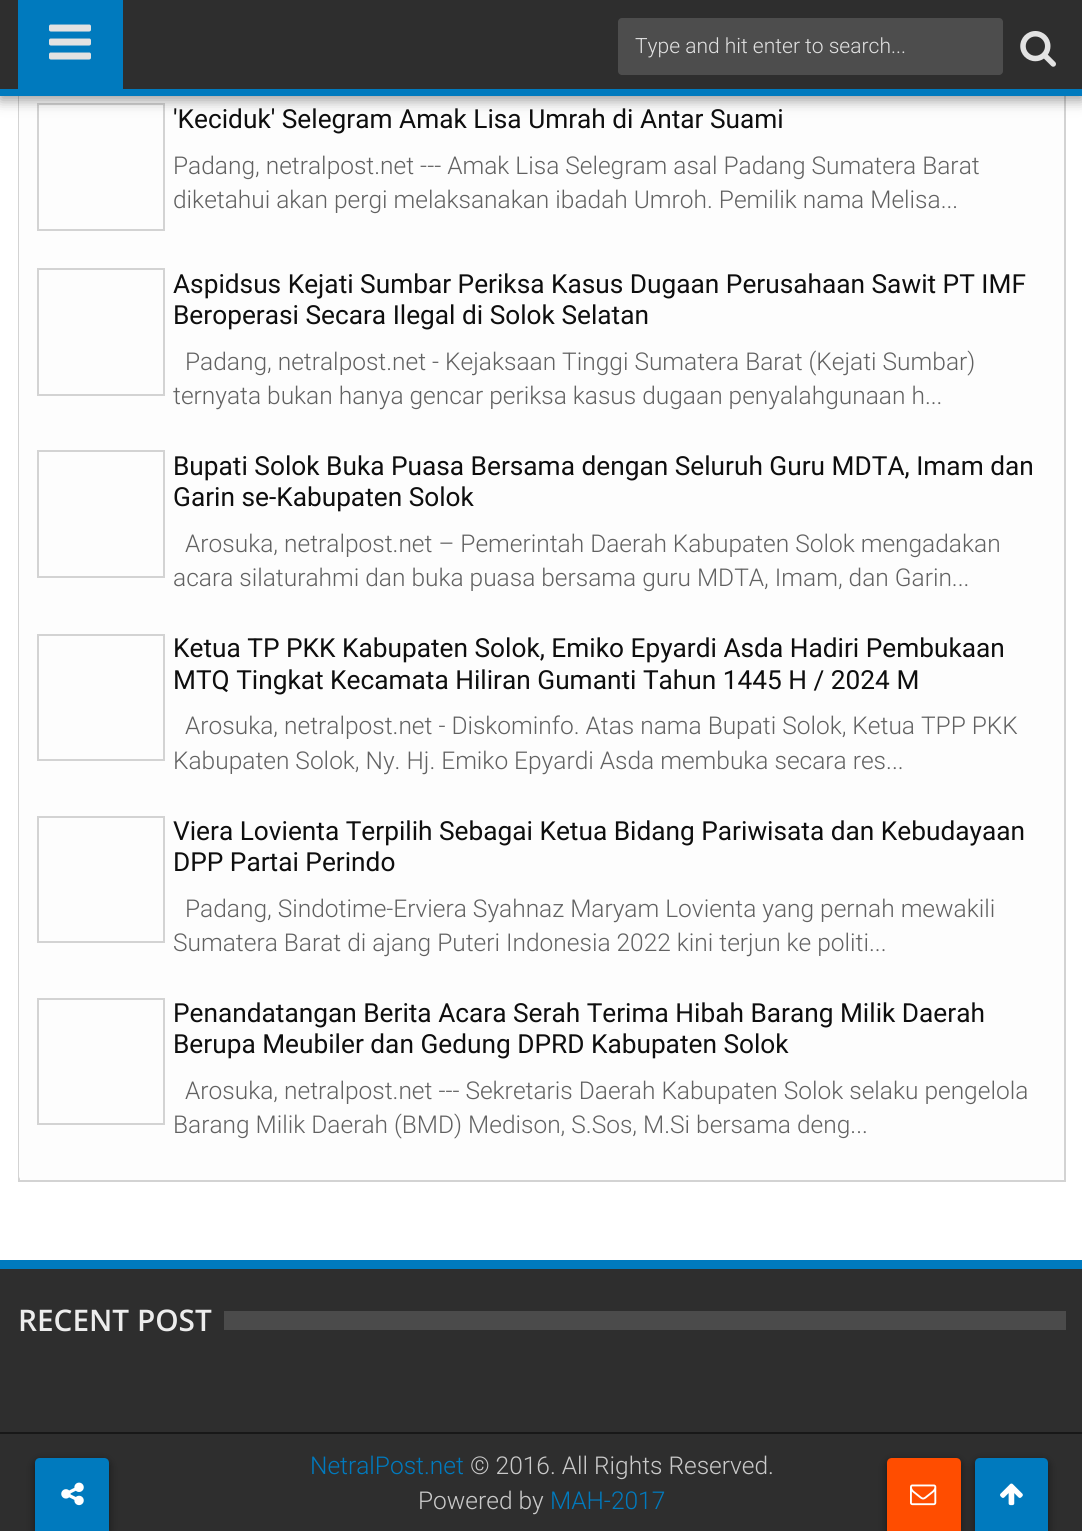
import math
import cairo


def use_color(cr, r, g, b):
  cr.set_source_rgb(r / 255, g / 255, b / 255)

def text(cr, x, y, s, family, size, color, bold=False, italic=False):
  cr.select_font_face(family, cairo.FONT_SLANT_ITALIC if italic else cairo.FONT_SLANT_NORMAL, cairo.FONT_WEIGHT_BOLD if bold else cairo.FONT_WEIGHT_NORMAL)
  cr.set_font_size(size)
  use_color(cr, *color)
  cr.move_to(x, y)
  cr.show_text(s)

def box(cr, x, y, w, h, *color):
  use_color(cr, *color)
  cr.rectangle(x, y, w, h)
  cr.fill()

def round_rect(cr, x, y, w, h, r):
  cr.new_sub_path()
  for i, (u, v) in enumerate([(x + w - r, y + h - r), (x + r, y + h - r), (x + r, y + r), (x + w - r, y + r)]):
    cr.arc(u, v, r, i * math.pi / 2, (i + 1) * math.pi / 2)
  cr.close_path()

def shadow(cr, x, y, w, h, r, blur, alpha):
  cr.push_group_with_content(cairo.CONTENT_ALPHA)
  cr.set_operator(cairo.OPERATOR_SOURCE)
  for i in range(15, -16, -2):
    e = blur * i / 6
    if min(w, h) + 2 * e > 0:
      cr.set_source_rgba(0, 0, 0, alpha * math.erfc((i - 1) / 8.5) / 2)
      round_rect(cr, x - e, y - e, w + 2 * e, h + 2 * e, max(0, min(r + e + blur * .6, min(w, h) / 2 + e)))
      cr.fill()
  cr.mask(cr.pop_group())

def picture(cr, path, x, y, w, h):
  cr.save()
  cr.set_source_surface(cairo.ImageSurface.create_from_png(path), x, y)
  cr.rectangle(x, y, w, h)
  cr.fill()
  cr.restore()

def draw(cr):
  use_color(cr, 255, 255, 255)
  cr.paint()
  box(cr, 1064, 96, 2, 1085, 211, 211, 211)
  box(cr, 18, 1180, 1048, 2, 211, 211, 211)
  box(cr, 18, 96, 2, 1085, 211, 211, 211)
  use_color(cr, 253, 253, 253)
  round_rect(cr, 19, -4, 1045, 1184, 4)
  cr.fill()
  cr.rectangle(38, 104, 126, 126)
  use_color(cr, 211, 211, 211)
  cr.stroke()
  use_color(cr, 0, 0, 0)
  shadow(cr, 0, 4, 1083, 96, 0, 7, 0.4)
  box(cr, 0, 0, 1082, 89, 46, 46, 46)
  box(cr, 0, 89, 1082, 7, 0, 122, 190)
  box(cr, 18, 0, 105, 89, 0, 122, 190)
  picture(cr, "img_01.png", 49, 24, 42, 36)
  use_color(cr, 77, 77, 77)
  round_rect(cr, 618, 18, 385, 57, 4)
  cr.fill()
  picture(cr, "img_02.png", 1020, 31, 36, 36)
  cr.rectangle(38, 269, 126, 126)
  use_color(cr, 211, 211, 211)
  cr.stroke()
  cr.rectangle(38, 451, 126, 126)
  cr.stroke()
  cr.rectangle(38, 635, 126, 125)
  cr.stroke()
  cr.rectangle(38, 817, 126, 125)
  cr.stroke()
  cr.rectangle(38, 999, 126, 125)
  cr.stroke()
  box(cr, 0, 1269, 1082, 262, 46, 46, 46)
  box(cr, 0, 1260, 1082, 9, 0, 122, 190)
  box(cr, 224, 1311, 842, 19, 75, 75, 75)
  box(cr, 0, 1432, 1082, 2, 24, 24, 24)
  use_color(cr, 0, 0, 0)
  shadow(cr, 975, 1461, 73, 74, 5, 4.5, 0.5)
  use_color(cr, 0, 122, 190)
  cr.new_path()
  cr.move_to(980, 1458)
  cr.line_to(1043, 1458)
  cr.curve_to(1046, 1458, 1048, 1460, 1048, 1463)
  cr.line_to(1048, 1531)
  cr.line_to(975, 1531)
  cr.line_to(975, 1463)
  cr.curve_to(975, 1460, 977, 1458, 980, 1458)
  cr.close_path()
  cr.fill()
  use_color(cr, 0, 0, 0)
  shadow(cr, 887, 1461, 74, 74, 5, 4.5, 0.5)
  use_color(cr, 255, 77, 0)
  cr.new_path()
  cr.move_to(892, 1458)
  cr.line_to(956, 1458)
  cr.curve_to(959, 1458, 961, 1460, 961, 1463)
  cr.line_to(961, 1531)
  cr.line_to(887, 1531)
  cr.line_to(887, 1463)
  cr.curve_to(887, 1460, 889, 1458, 892, 1458)
  cr.close_path()
  cr.fill()
  picture(cr, "img_03.png", 910, 1484, 27, 22)
  picture(cr, "img_04.png", 1000, 1483, 23, 23)
  use_color(cr, 0, 0, 0)
  shadow(cr, 35, 1461, 74, 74, 5, 4.5, 0.5)
  use_color(cr, 0, 122, 190)
  cr.new_path()
  cr.move_to(40, 1458)
  cr.line_to(104, 1458)
  cr.curve_to(107, 1458, 109, 1460, 109, 1463)
  cr.line_to(109, 1531)
  cr.line_to(35, 1531)
  cr.line_to(35, 1463)
  cr.curve_to(35, 1460, 37, 1458, 40, 1458)
  cr.close_path()
  cr.fill()
  picture(cr, "img_05.png", 61, 1482, 23, 24)
  text(cr, 635, 53, "Type and hit enter to search...", "Roboto Light", 21, (226, 226, 226))
  text(cr, 173, 128, "'Keciduk' Selegram Amak Lisa Umrah di Antar Suami", "Roboto", 26.25, (14, 14, 14))
  text(cr, 173, 174, "Padang, netralpost.net --- Amak Lisa Selegram asal Padang Sumatera Barat", "Roboto Light", 24.5, (97, 97, 97))
  text(cr, 173, 208, "diketahui akan pergi melaksanakan ibadah Umroh. Pemilik nama Melisa...", "Roboto Light", 24.5, (97, 97, 97))
  text(cr, 173, 293, "Aspidsus Kejati Sumbar Periksa Kasus Dugaan Perusahaan Sawit PT IMF", "Roboto", 26.25, (14, 14, 14))
  text(cr, 173, 324, "Beroperasi Secara Ilegal di Solok Selatan", "Roboto", 26.25, (14, 14, 14))
  text(cr, 185, 370, "Padang, netralpost.net - Kejaksaan Tinggi Sumatera Barat (Kejati Sumbar)", "Roboto Light", 24.5, (97, 97, 97))
  text(cr, 173, 404, "ternyata bukan hanya gencar periksa kasus dugaan penyalahgunaan h...", "Roboto Light", 24.5, (97, 97, 97))
  text(cr, 173, 475, "Bupati Solok Buka Puasa Bersama dengan Seluruh Guru MDTA, Imam dan", "Roboto", 26.25, (14, 14, 14))
  text(cr, 173, 506, "Garin se-Kabupaten Solok", "Roboto", 26.25, (14, 14, 14))
  text(cr, 185, 552, "Arosuka, netralpost.net – Pemerintah Daerah Kabupaten Solok mengadakan", "Roboto Light", 24.5, (97, 97, 97))
  text(cr, 173, 586, "acara silaturahmi dan buka puasa bersama guru MDTA, Imam, dan Garin...", "Roboto Light", 24.5, (97, 97, 97))
  text(cr, 173, 657, "Ketua TP PKK Kabupaten Solok, Emiko Epyardi Asda Hadiri Pembukaan", "Roboto", 26.25, (14, 14, 14))
  text(cr, 173, 689, "MTQ Tingkat Kecamata Hiliran Gumanti Tahun 1445 H / 2024 M", "Roboto", 26.25, (14, 14, 14))
  text(cr, 185, 734, "Arosuka, netralpost.net - Diskominfo. Atas nama Bupati Solok, Ketua TPP PKK", "Roboto Light", 24.5, (97, 97, 97))
  text(cr, 173, 769, "Kabupaten Solok, Ny. Hj. Emiko Epyardi Asda membuka secara res...", "Roboto Light", 24.5, (97, 97, 97))
  text(cr, 173, 840, "Viera Lovienta Terpilih Sebagai Ketua Bidang Pariwisata dan Kebudayaan", "Roboto", 26.25, (14, 14, 14))
  text(cr, 173, 871, "DPP Partai Perindo", "Roboto", 26.25, (14, 14, 14))
  text(cr, 185, 917, "Padang, Sindotime-Erviera Syahnaz Maryam Lovienta yang pernah mewakili", "Roboto Light", 24.5, (97, 97, 97))
  text(cr, 173, 951, "Sumatera Barat di ajang Puteri Indonesia 2022 kini terjun ke politi...", "Roboto Light", 24.5, (97, 97, 97))
  text(cr, 173, 1022, "Penandatangan Berita Acara Serah Terima Hibah Barang Milik Daerah", "Roboto", 26.25, (14, 14, 14))
  text(cr, 173, 1053, "Berupa Meubiler dan Gedung DPRD Kabupaten Solok", "Roboto", 26.25, (14, 14, 14))
  text(cr, 185, 1099, "Arosuka, netralpost.net --- Sekretaris Daerah Kabupaten Solok selaku pengelola", "Roboto Light", 24.5, (97, 97, 97))
  text(cr, 173, 1133, "Barang Milik Daerah (BMD) Medison, S.Sos, M.Si bersama deng...", "Roboto Light", 24.5, (97, 97, 97))
  text(cr, 18, 1331, "RECENT POST", "Open Sans SemiBold", 29.75, (236, 236, 236))
  text(cr, 310, 1474, "NetralPost.net", "Roboto Light", 24.5, (0, 122, 190))
  text(cr, 470, 1474, "© 2016. All Rights Reserved.", "Roboto Light", 24.5, (202, 202, 202))
  text(cr, 418, 1509, "Powered by", "Roboto Light", 24.5, (202, 202, 202))
  text(cr, 550, 1509, "MAH-2017", "Roboto Light", 24.5, (0, 122, 190))


surface = cairo.ImageSurface(cairo.FORMAT_RGB24, 1082, 1531)
cr = cairo.Context(surface)
options = cairo.FontOptions()
options.set_hint_metrics(cairo.HINT_METRICS_OFF)
options.set_hint_style(cairo.HINT_STYLE_NONE)
cr.set_font_options(options)
cr.set_miter_limit(4)
draw(cr)
surface.write_to_png("out.png")
